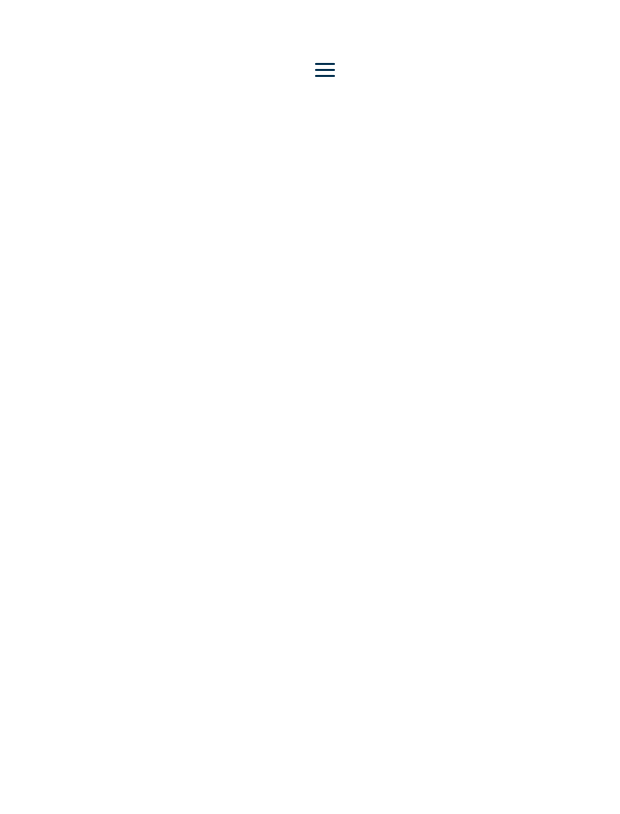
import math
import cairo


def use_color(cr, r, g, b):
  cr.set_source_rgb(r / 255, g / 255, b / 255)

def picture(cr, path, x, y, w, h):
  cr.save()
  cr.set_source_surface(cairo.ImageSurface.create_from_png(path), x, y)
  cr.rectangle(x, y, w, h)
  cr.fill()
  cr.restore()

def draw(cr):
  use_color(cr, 255, 255, 255)
  cr.paint()
  picture(cr, "img_01.png", 315, 62, 20, 15)


surface = cairo.ImageSurface(cairo.FORMAT_RGB24, 620, 814)
cr = cairo.Context(surface)
options = cairo.FontOptions()
options.set_hint_metrics(cairo.HINT_METRICS_OFF)
options.set_hint_style(cairo.HINT_STYLE_NONE)
cr.set_font_options(options)
cr.set_miter_limit(4)
draw(cr)
surface.write_to_png("out.png")
